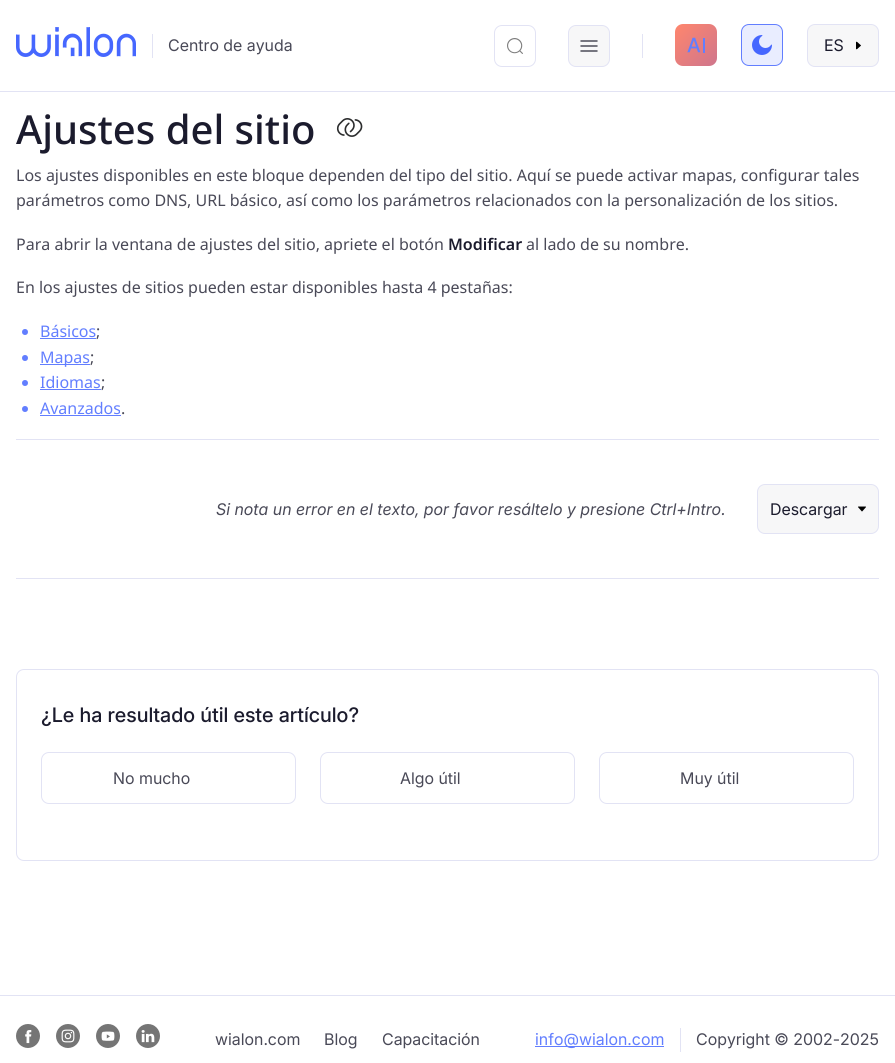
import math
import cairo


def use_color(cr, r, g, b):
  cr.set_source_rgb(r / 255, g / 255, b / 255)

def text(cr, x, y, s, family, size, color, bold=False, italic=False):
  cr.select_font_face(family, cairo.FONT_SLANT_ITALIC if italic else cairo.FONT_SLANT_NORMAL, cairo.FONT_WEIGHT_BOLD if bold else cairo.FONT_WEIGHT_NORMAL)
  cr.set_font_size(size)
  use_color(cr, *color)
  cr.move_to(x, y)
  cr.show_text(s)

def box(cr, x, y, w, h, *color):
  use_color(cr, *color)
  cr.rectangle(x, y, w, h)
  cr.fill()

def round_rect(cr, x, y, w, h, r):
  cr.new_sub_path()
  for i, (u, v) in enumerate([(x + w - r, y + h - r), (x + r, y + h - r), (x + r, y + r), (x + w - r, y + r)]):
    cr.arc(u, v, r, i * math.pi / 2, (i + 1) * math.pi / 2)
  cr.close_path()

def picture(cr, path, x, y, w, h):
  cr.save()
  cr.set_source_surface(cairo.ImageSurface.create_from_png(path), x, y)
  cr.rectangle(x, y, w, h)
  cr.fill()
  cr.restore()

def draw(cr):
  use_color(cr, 255, 255, 255)
  cr.paint()
  box(cr, 0, 91, 895, 1, 226, 227, 244)
  picture(cr, "img_01.png", 16, 27, 120, 30)
  box(cr, 152, 34, 1, 24, 226, 227, 244)
  round_rect(cr, 494.5, 25.5, 41, 41, 7.5)
  cr.set_line_width(1)
  cr.stroke()
  picture(cr, "img_02.png", 507, 38, 16, 16)
  use_color(cr, 247, 247, 248)
  round_rect(cr, 568.5, 25.5, 41, 41, 7.5)
  cr.fill_preserve()
  use_color(cr, 226, 227, 244)
  cr.stroke()
  picture(cr, "img_03.png", 580, 40, 18, 12)
  box(cr, 642, 34, 1, 24, 226, 227, 244)
  gradient = cairo.LinearGradient(843, -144, 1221, 234)
  gradient.add_color_stop_rgba(0, 1, 0.525, 0.427, 1)
  gradient.add_color_stop_rgba(0.4, 0.318, 0.294, 0.875, 1)
  gradient.add_color_stop_rgba(0.6, 0.078, 0.984, 0.984, 1)
  gradient.add_color_stop_rgba(0.8, 0.318, 0.294, 0.875, 1)
  gradient.add_color_stop_rgba(0.9, 1, 0.525, 0.427, 1)
  gradient.add_color_stop_rgba(1, 0.867, 0.427, 1, 1)
  cr.set_source(gradient)
  round_rect(cr, 675, 24, 42, 42, 8)
  cr.fill()
  picture(cr, "img_04.png", 687, 37, 18, 16)
  use_color(cr, 233, 237, 255)
  round_rect(cr, 741.5, 24.5, 41, 41, 7.5)
  cr.fill_preserve()
  use_color(cr, 98, 126, 255)
  cr.stroke()
  picture(cr, "img_05.png", 752, 35, 20, 20)
  use_color(cr, 247, 247, 248)
  round_rect(cr, 807.5, 24.5, 71, 42, 7.5)
  cr.fill_preserve()
  use_color(cr, 226, 227, 244)
  cr.stroke()
  picture(cr, "img_06.png", 856, 41, 5, 9)
  picture(cr, "img_07.png", 336, 118, 27, 19)
  use_color(cr, 98, 126, 255)
  cr.arc(25, 332, 3, 0, 2 * math.pi)
  cr.fill()
  box(cr, 40, 338, 56, 1, 98, 126, 255)
  cr.arc(25, 358, 3, 0, 2 * math.pi)
  cr.fill()
  box(cr, 40, 364, 50, 1, 98, 126, 255)
  cr.arc(25, 383, 3, 0, 2 * math.pi)
  cr.fill()
  box(cr, 40, 389, 61, 1, 98, 126, 255)
  cr.arc(25, 409, 3, 0, 2 * math.pi)
  cr.fill()
  box(cr, 40, 415, 81, 1, 98, 126, 255)
  box(cr, 16, 439, 863, 1, 226, 227, 244)
  box(cr, 16, 578, 863, 1, 226, 227, 244)
  use_color(cr, 247, 247, 248)
  round_rect(cr, 757.5, 484.5, 121, 49, 7.5)
  cr.fill_preserve()
  use_color(cr, 226, 227, 244)
  cr.stroke()
  picture(cr, "img_08.png", 858, 506, 8, 6)
  round_rect(cr, 16.5, 669.5, 862, 191, 7.5)
  cr.stroke()
  round_rect(cr, 41.5, 752.5, 254, 51, 7.5)
  cr.stroke()
  round_rect(cr, 320.5, 752.5, 254, 51, 7.5)
  cr.stroke()
  round_rect(cr, 599.5, 752.5, 254, 51, 7.5)
  cr.stroke()
  box(cr, 0, 995, 895, 1, 226, 227, 244)
  picture(cr, "img_09.png", 16, 1024, 24, 24)
  picture(cr, "img_10.png", 56, 1024, 24, 24)
  picture(cr, "img_11.png", 96, 1024, 24, 24)
  picture(cr, "img_12.png", 136, 1024, 24, 24)
  box(cr, 535, 1046, 129, 1, 98, 126, 255)
  box(cr, 680, 1028, 1, 24, 226, 227, 244)
  text(cr, 168, 51, "Centro de ayuda", "Inter", 16, (73, 73, 87))
  text(cr, 824, 51, "ES", "Inter", 16, (27, 27, 45))
  text(cr, 16, 144, "Ajustes del sitio", "Noto Sans Medium", 40, (27, 27, 45))
  text(cr, 16, 181, "Los ajustes disponibles en este bloque dependen del tipo del sitio. Aquí se puede activar mapas, configurar tales", "Noto Sans", 16, (73, 73, 87))
  text(cr, 16, 206, "parámetros como DNS, URL básico, así como los parámetros relacionados con la personalización de los sitios.", "Noto Sans", 16, (73, 73, 87))
  text(cr, 16, 250, "Para abrir la ventana de ajustes del sitio, apriete el botón", "Noto Sans", 16, (73, 73, 87))
  text(cr, 448, 250, "Modificar", "Noto Sans SemiBold", 16, (27, 27, 45))
  text(cr, 526, 250, "al lado de su nombre.", "Noto Sans", 16, (73, 73, 87))
  text(cr, 16, 293, "En los ajustes de sitios pueden estar disponibles hasta 4 pestañas:", "Noto Sans", 16, (73, 73, 87))
  text(cr, 40, 337, "Básicos", "Noto Sans", 16, (98, 126, 255))
  text(cr, 96, 337, ";", "Noto Sans", 16, (73, 73, 87))
  text(cr, 40, 363, "Mapas", "Noto Sans", 16, (98, 126, 255))
  text(cr, 90, 363, ";", "Noto Sans", 16, (73, 73, 87))
  text(cr, 40, 388, "Idiomas", "Noto Sans", 16, (98, 126, 255))
  text(cr, 101, 388, ";", "Noto Sans", 16, (73, 73, 87))
  text(cr, 40, 414, "Avanzados", "Noto Sans", 16, (98, 126, 255))
  text(cr, 121, 414, ".", "Noto Sans", 16, (73, 73, 87))
  text(cr, 216, 515, "Si nota un error en el texto, por favor resáltelo y presione Ctrl+Intro.", "Inter", 16, (73, 73, 87), italic=True)
  text(cr, 770, 515, "Descargar", "Inter", 16, (27, 27, 45))
  text(cr, 41, 722, "¿Le ha resultado útil este artículo?", "Inter Medium", 20, (27, 27, 45))
  text(cr, 113, 784, "No mucho", "Inter", 16, (73, 73, 87))
  text(cr, 400, 784, "Algo útil", "Inter", 16, (73, 73, 87))
  text(cr, 680, 784, "Muy útil", "Inter", 16, (73, 73, 87))
  text(cr, 215, 1045, "wialon.com", "Inter", 16, (73, 73, 87))
  text(cr, 324, 1045, "Blog", "Inter", 16, (73, 73, 87))
  text(cr, 382, 1045, "Capacitación", "Inter", 16, (73, 73, 87))
  text(cr, 535, 1045, "info@wialon.com", "Inter", 16, (98, 126, 255))
  text(cr, 696, 1045, "Copyright © 2002-2025", "Inter", 16, (73, 73, 87))


surface = cairo.ImageSurface(cairo.FORMAT_RGB24, 895, 1063)
cr = cairo.Context(surface)
options = cairo.FontOptions()
options.set_hint_metrics(cairo.HINT_METRICS_OFF)
options.set_hint_style(cairo.HINT_STYLE_NONE)
cr.set_font_options(options)
cr.set_miter_limit(4)
draw(cr)
surface.write_to_png("out.png")
